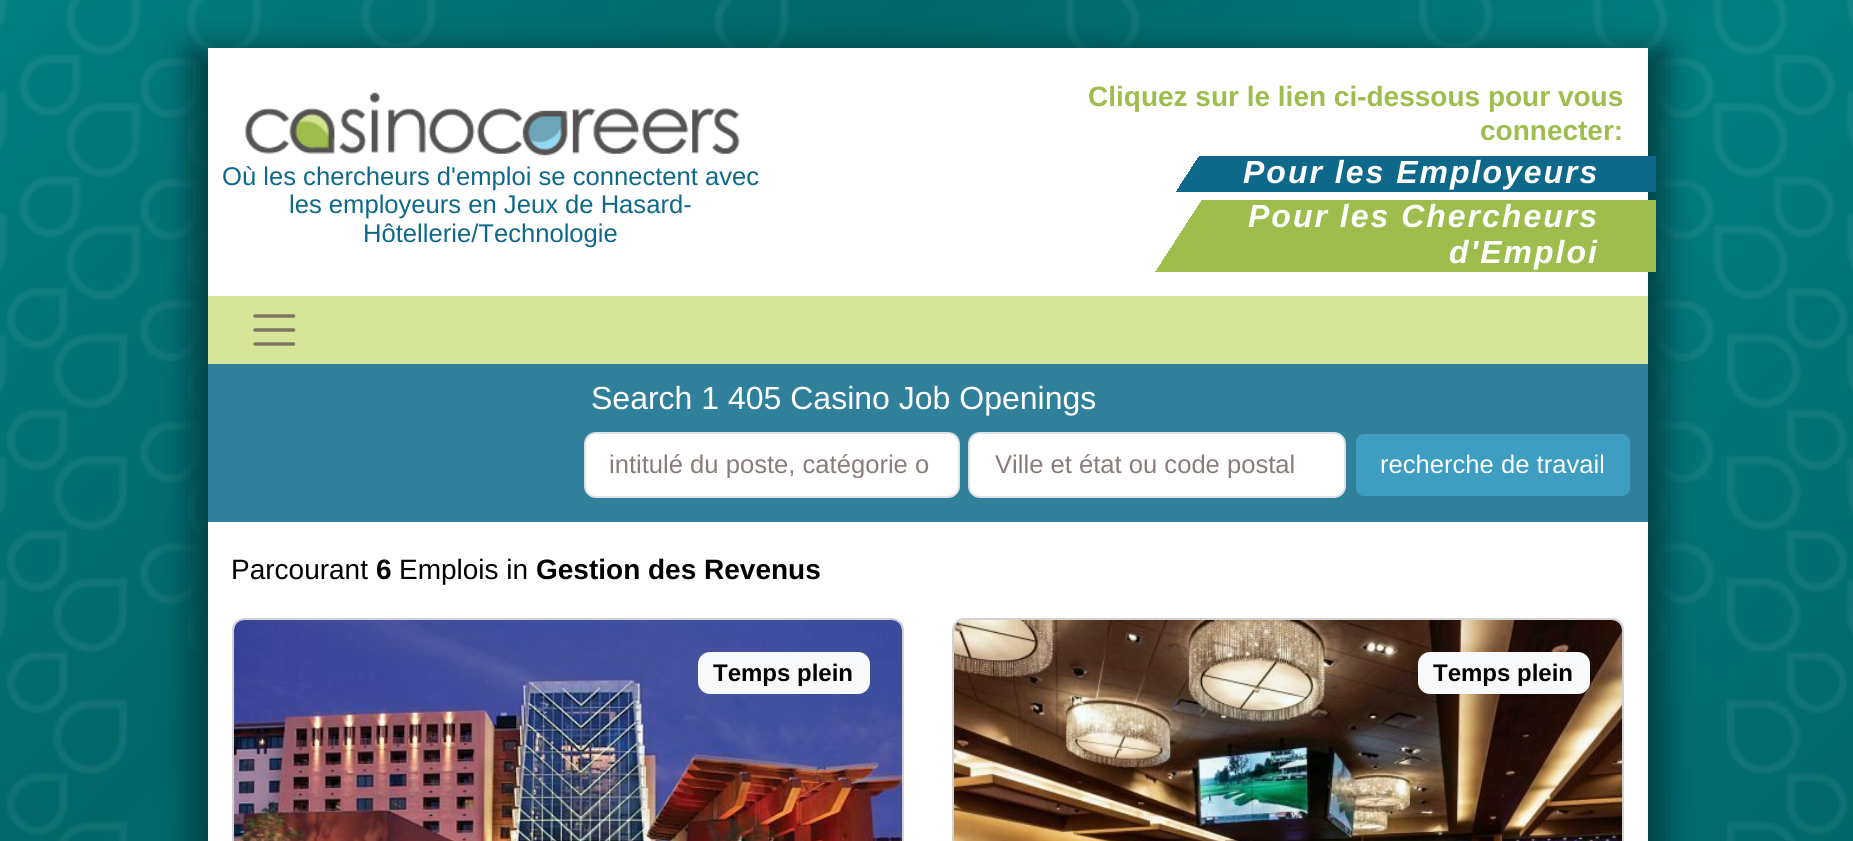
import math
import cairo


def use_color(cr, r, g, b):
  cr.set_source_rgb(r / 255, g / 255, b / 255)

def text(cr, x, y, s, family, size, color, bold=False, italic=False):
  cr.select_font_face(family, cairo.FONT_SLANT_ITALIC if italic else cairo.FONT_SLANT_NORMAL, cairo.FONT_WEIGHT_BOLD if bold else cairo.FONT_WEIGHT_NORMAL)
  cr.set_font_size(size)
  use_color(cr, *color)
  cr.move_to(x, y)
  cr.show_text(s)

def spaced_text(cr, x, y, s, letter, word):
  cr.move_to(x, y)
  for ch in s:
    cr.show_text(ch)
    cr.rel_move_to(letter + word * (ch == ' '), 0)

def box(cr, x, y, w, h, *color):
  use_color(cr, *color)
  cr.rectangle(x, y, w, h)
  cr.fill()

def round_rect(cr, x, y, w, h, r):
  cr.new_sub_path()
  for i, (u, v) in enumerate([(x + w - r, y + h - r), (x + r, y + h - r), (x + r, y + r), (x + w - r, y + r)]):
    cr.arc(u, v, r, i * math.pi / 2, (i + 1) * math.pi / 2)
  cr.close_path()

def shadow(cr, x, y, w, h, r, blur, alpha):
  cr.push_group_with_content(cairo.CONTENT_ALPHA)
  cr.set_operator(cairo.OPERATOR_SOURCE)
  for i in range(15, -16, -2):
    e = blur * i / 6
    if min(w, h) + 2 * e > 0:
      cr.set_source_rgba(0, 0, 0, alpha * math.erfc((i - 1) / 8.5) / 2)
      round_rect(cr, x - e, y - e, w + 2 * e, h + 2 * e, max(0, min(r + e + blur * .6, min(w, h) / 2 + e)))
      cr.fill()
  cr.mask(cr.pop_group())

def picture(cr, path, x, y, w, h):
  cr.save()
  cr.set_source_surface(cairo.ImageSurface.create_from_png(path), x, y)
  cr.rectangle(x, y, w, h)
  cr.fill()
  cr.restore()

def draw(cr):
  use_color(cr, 255, 255, 255)
  cr.paint()
  picture(cr, "img_01.png", 0, 0, 1853, 841)
  use_color(cr, 1, 68, 71)
  shadow(cr, 188, 48, 1480, 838, 0, 15, 1)
  box(cr, 208, 48, 1440, 793, 255, 255, 255)
  picture(cr, "img_02.png", 245, 92, 495, 64)
  gradient = cairo.LinearGradient(1213, 52, 1589, 296)
  gradient.add_color_stop_rgba(0.1, 0.055, 0.408, 0.541, 0)
  gradient.add_color_stop_rgba(0.1, 0.055, 0.408, 0.541, 1)
  gradient.add_color_stop_rgba(1, 0.055, 0.408, 0.541, 1)
  cr.set_source(gradient)
  cr.rectangle(1176, 156, 480, 36)
  cr.fill()
  gradient = cairo.LinearGradient(1205, 109, 1597, 363)
  gradient.add_color_stop_rgba(0.1, 0.624, 0.741, 0.302, 0)
  gradient.add_color_stop_rgba(0.1, 0.624, 0.741, 0.302, 1)
  gradient.add_color_stop_rgba(1, 0.624, 0.741, 0.302, 1)
  cr.set_source(gradient)
  cr.rectangle(1155, 200, 501, 72)
  cr.fill()
  box(cr, 208, 296, 1440, 68, 214, 229, 152)
  cr.new_path()
  cr.move_to(255, 316)
  cr.line_to(293.5, 316)
  cr.move_to(255, 330)
  cr.line_to(293.5, 330)
  cr.move_to(255, 344)
  cr.line_to(293.5, 344)
  use_color(cr, 126, 117, 96)
  cr.set_line_width(3.5)
  cr.set_line_cap(cairo.LINE_CAP_ROUND)
  cr.stroke()
  box(cr, 208, 364, 1440, 158, 49, 128, 155)
  use_color(cr, 255, 255, 255)
  round_rect(cr, 585, 433, 374, 64, 11)
  cr.fill_preserve()
  use_color(cr, 222, 226, 230)
  cr.set_line_width(2)
  cr.set_line_cap(cairo.LINE_CAP_BUTT)
  cr.stroke()
  use_color(cr, 255, 255, 255)
  round_rect(cr, 969, 433, 376, 64, 11)
  cr.fill_preserve()
  use_color(cr, 222, 226, 230)
  cr.stroke()
  use_color(cr, 61, 158, 194)
  round_rect(cr, 1355, 433, 276, 64, 9)
  cr.fill_preserve()
  use_color(cr, 49, 126, 155)
  cr.stroke()
  round_rect(cr, 233, 619, 670, 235, 11)
  use_color(cr, 210, 210, 210)
  cr.stroke()
  picture(cr, "img_03.png", 234, 620, 668, 221)
  use_color(cr, 248, 249, 250)
  round_rect(cr, 698, 652, 172, 42, 12)
  cr.fill()
  round_rect(cr, 953, 619, 670, 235, 11)
  use_color(cr, 210, 210, 210)
  cr.stroke()
  picture(cr, "img_04.png", 954, 620, 668, 221)
  use_color(cr, 248, 249, 250)
  round_rect(cr, 1418, 652, 172, 42, 12)
  cr.fill()
  text(cr, 222, 185, "Où les chercheurs d'emploi se connectent avec", "Liberation Sans", 25.6, (14, 104, 138))
  text(cr, 289, 213, "les employeurs en Jeux de Hasard-", "Liberation Sans", 25.6, (14, 104, 138))
  text(cr, 363, 242, "Hôtellerie/Technologie", "Liberation Sans", 25.6, (14, 104, 138))
  text(cr, 1088, 106, "Cliquez sur le lien ci-dessous pour vous", "Liberation Sans", 28, (159, 189, 77), bold=True)
  text(cr, 1480, 140, "connecter:", "Liberation Sans", 28, (159, 189, 77), bold=True)
  cr.select_font_face("Liberation Sans", cairo.FONT_SLANT_ITALIC, cairo.FONT_WEIGHT_BOLD)
  cr.set_font_size(32)
  use_color(cr, 255, 255, 255)
  spaced_text(cr, 1243, 183, "Pour les Employeurs", 2, 0)
  spaced_text(cr, 1248, 227, "Pour les Chercheurs", 2, 0)
  spaced_text(cr, 1449, 263, "d'Emploi", 2, 0)
  text(cr, 591, 409, "Search 1 405 Casino Job Openings", "Liberation Sans", 32, (255, 255, 255))
  cr.save()
  cr.rectangle(610, 448, 324, 30)
  cr.clip()
  text(cr, 609, 473, "intitulé du poste, catégorie o", "Liberation Sans", 25.6, (137, 124, 122))
  cr.restore()
  cr.save()
  cr.rectangle(994, 448, 326, 30)
  cr.clip()
  text(cr, 995, 473, "Ville et état ou code postal", "Liberation Sans", 25.6, (137, 124, 122))
  cr.restore()
  text(cr, 1380, 473, "recherche de travail", "Liberation Sans", 25.6, (255, 255, 255))
  text(cr, 231, 579, "Parcourant", "Liberation Sans", 28, (0, 0, 0))
  text(cr, 376, 579, "6", "Liberation Sans", 28, (0, 0, 0), bold=True)
  text(cr, 399, 579, "Emplois in", "Liberation Sans", 28, (0, 0, 0))
  text(cr, 536, 579, "Gestion des Revenus", "Liberation Sans", 28, (0, 0, 0), bold=True)
  text(cr, 713, 681, "Temps plein", "Liberation Sans", 24, (0, 0, 0), bold=True)
  text(cr, 1433, 681, "Temps plein", "Liberation Sans", 24, (0, 0, 0), bold=True)


surface = cairo.ImageSurface(cairo.FORMAT_RGB24, 1853, 841)
cr = cairo.Context(surface)
options = cairo.FontOptions()
options.set_hint_metrics(cairo.HINT_METRICS_OFF)
options.set_hint_style(cairo.HINT_STYLE_NONE)
cr.set_font_options(options)
cr.set_miter_limit(4)
draw(cr)
surface.write_to_png("out.png")
